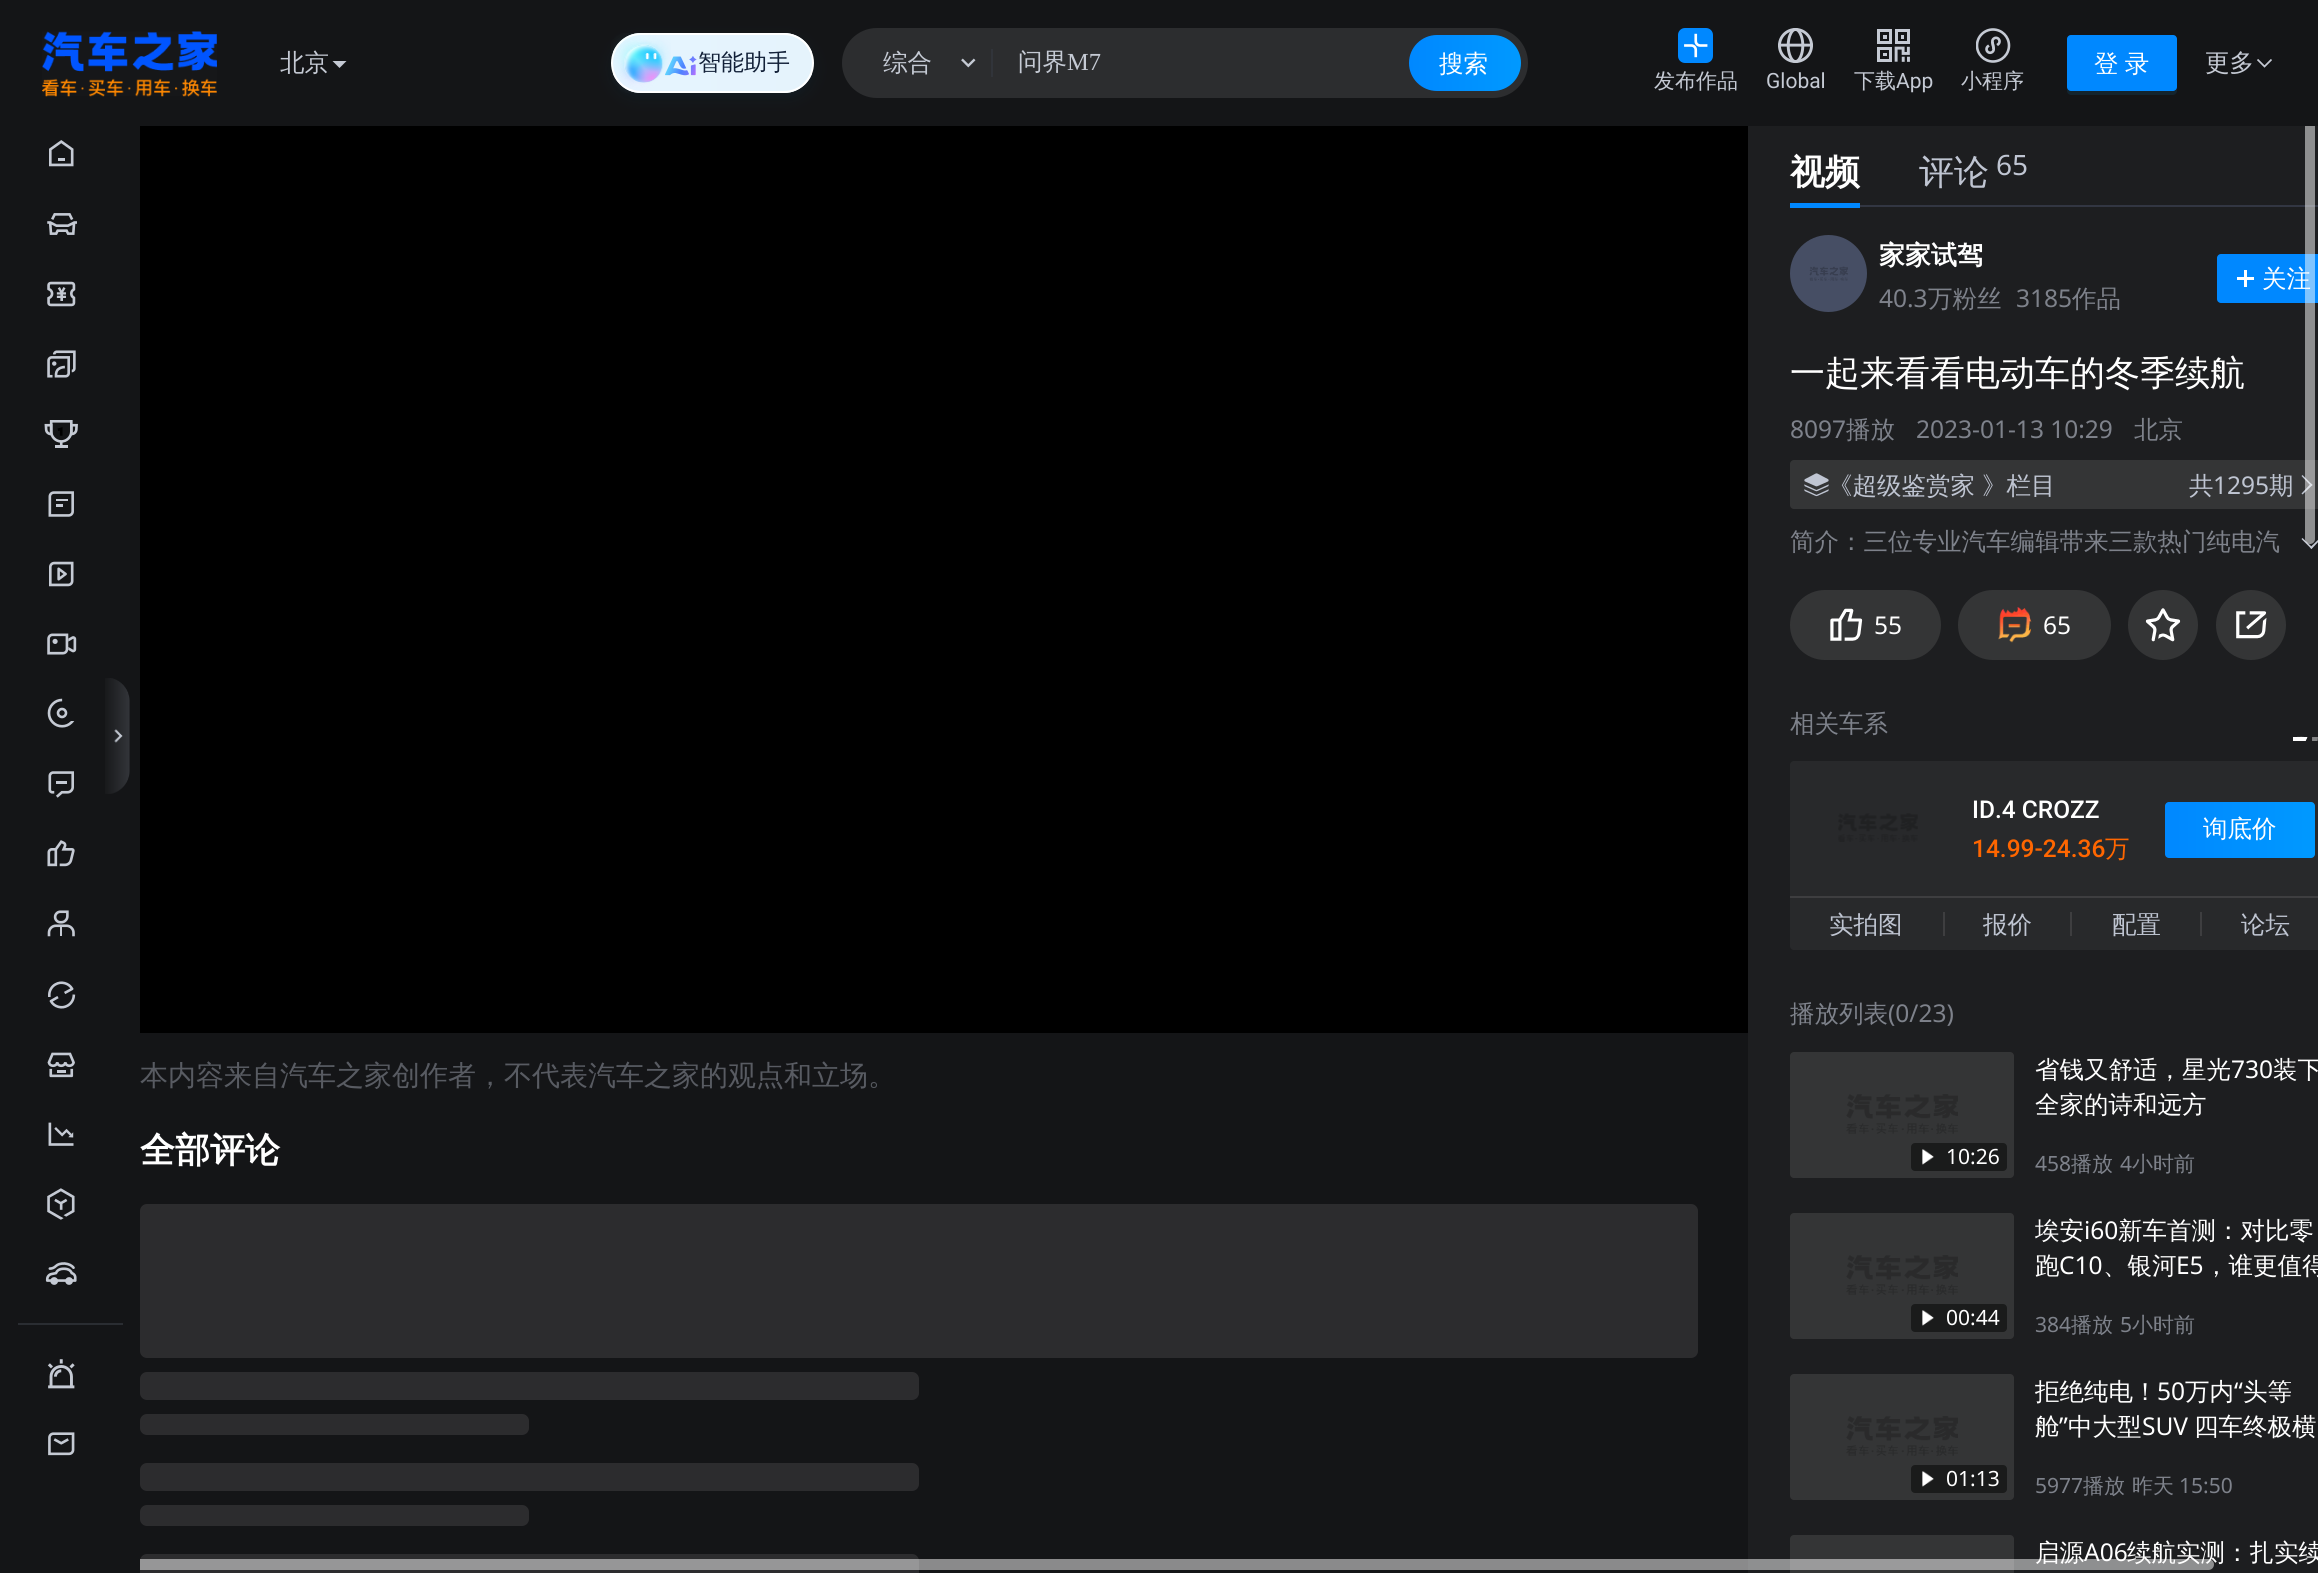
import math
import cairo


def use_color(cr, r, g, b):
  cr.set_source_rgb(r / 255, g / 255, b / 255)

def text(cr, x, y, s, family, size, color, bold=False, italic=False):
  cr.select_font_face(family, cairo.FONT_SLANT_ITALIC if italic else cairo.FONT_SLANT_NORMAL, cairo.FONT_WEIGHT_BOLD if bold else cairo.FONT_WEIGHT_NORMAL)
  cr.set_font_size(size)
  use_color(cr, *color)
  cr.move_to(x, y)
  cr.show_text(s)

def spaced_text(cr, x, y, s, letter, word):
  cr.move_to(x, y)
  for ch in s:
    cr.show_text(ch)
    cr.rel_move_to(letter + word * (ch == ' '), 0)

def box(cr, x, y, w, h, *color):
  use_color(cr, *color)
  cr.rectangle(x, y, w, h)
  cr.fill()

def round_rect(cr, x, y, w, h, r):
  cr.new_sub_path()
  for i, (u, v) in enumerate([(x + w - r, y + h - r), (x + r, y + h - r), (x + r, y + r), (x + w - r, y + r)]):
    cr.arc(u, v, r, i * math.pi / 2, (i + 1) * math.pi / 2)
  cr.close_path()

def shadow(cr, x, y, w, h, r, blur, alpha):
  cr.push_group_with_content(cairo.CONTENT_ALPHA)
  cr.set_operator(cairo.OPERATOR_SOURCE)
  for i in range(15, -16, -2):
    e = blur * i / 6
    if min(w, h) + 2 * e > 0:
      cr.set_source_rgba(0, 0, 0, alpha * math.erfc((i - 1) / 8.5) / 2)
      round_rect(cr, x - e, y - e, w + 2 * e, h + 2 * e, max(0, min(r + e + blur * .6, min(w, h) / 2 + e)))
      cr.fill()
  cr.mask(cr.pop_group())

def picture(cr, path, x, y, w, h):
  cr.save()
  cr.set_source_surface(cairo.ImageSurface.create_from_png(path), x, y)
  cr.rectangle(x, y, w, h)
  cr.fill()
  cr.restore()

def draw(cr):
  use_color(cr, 20, 21, 23)
  cr.paint()
  picture(cr, "img_01.png", 42, 31, 175, 66)
  use_color(cr, 197, 202, 212)
  cr.set_fill_rule(cairo.FILL_RULE_EVEN_ODD)
  cr.new_path()
  cr.move_to(339.5, 68)
  cr.line_to(346.5, 61)
  cr.line_to(332.5, 61)
  cr.close_path()
  cr.fill()
  use_color(cr, 0, 86, 140)
  shadow(cr, 611, 39, 203, 59, 29.5, 7, 0.09)
  cr.save()
  cr.set_fill_rule(cairo.FILL_RULE_WINDING)
  round_rect(cr, 611, 33, 203, 60, 30)
  cr.clip()
  gradient = cairo.LinearGradient(812, 63, 613, 63)
  gradient.add_color_stop_rgba(0, 0.898, 0.953, 0.988, 1)
  gradient.add_color_stop_rgba(1, 0.898, 0.957, 1, 1)
  cr.set_source(gradient)
  cr.rectangle(613, 33, 199, 60)
  cr.fill()
  cr.restore()
  round_rect(cr, 612, 34, 201, 58, 29)
  use_color(cr, 255, 255, 255)
  cr.stroke()
  picture(cr, "img_02.png", 611, 33, 60, 60)
  picture(cr, "img_03.png", 665, 56, 32, 20)
  use_color(cr, 44, 45, 47)
  round_rect(cr, 845.5, 31.5, 679, 63, 31.5)
  cr.fill_preserve()
  cr.set_line_width(7)
  cr.stroke()
  picture(cr, "img_04.png", 961, 58, 15, 10)
  box(cr, 991, 49, 2, 28, 49, 52, 58)
  gradient = cairo.LinearGradient(1409, 63, 1521, 63)
  gradient.add_color_stop_rgba(0, 0, 0.533, 1, 1)
  gradient.add_color_stop_rgba(1, 0, 0.6, 1, 1)
  cr.set_source(gradient)
  round_rect(cr, 1409, 35, 112, 56, 28)
  cr.fill()
  use_color(cr, 19, 36, 46)
  cr.set_fill_rule(cairo.FILL_RULE_WINDING)
  cr.new_path()
  cr.move_to(2067, 89)
  cr.line_to(2067, 91)
  cr.curve_to(2067, 93, 2069, 95, 2071, 95)
  cr.line_to(2173, 95)
  cr.curve_to(2175, 95, 2177, 93, 2177, 91)
  cr.line_to(2177, 88)
  cr.curve_to(2177, 89, 2175, 91, 2174, 91)
  cr.line_to(2070, 91)
  cr.curve_to(2069, 91, 2068, 90, 2067, 89)
  cr.close_path()
  cr.fill()
  use_color(cr, 0, 136, 255)
  round_rect(cr, 2067, 35, 110, 56, 4)
  cr.fill()
  picture(cr, "img_05.png", 2257, 59, 15, 9)
  picture(cr, "img_06.png", 1678, 28, 35, 35)
  picture(cr, "img_07.png", 1778, 28, 35, 35)
  picture(cr, "img_08.png", 1877, 29, 33, 33)
  picture(cr, "img_09.png", 1976, 28, 35, 35)
  picture(cr, "img_10.png", 49, 140, 25, 27)
  picture(cr, "img_11.png", 47, 213, 30, 22)
  picture(cr, "img_12.png", 47, 281, 29, 26)
  picture(cr, "img_13.png", 47, 350, 29, 28)
  picture(cr, "img_14.png", 44, 420, 34, 28)
  picture(cr, "img_15.png", 48, 491, 26, 26)
  picture(cr, "img_16.png", 49, 561, 25, 26)
  picture(cr, "img_17.png", 47, 633, 30, 22)
  picture(cr, "img_18.png", 47, 698, 28, 30)
  picture(cr, "img_19.png", 105, 678, 25, 116)
  picture(cr, "img_20.png", 114, 729, 9, 14)
  picture(cr, "img_21.png", 48, 771, 26, 27)
  picture(cr, "img_22.png", 47, 840, 28, 27)
  picture(cr, "img_23.png", 47, 910, 28, 27)
  picture(cr, "img_24.png", 48, 981, 28, 28)
  picture(cr, "img_25.png", 47, 1052, 28, 26)
  picture(cr, "img_26.png", 48, 1122, 26, 24)
  picture(cr, "img_27.png", 47, 1188, 28, 32)
  picture(cr, "img_28.png", 45, 1262, 32, 23)
  box(cr, 18, 1323, 105, 2, 42, 45, 50)
  picture(cr, "img_29.png", 47, 1359, 28, 30)
  picture(cr, "img_30.png", 48, 1432, 27, 24)
  box(cr, 140, 126, 1608, 907, 0, 0, 0)
  use_color(cr, 44, 44, 46)
  round_rect(cr, 140, 1204, 1558, 154, 7)
  cr.fill()
  round_rect(cr, 140, 1372, 779, 28, 7)
  cr.fill()
  round_rect(cr, 140, 1414, 389, 21, 7)
  cr.fill()
  round_rect(cr, 140, 1463, 779, 28, 7)
  cr.fill()
  round_rect(cr, 140, 1505, 389, 21, 7)
  cr.fill()
  round_rect(cr, 140, 1554, 779, 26, 7)
  cr.fill()
  box(cr, 1748, 126, 570, 1447, 29, 30, 32)
  box(cr, 1790, 203, 70, 5, 0, 136, 255)
  box(cr, 1860, 205, 458, 2, 50, 54, 66)
  use_color(cr, 70, 78, 100)
  cr.arc(1828.5, 273.5, 38.5, 0, 2 * math.pi)
  cr.fill()
  picture(cr, "img_31.png", 1809, 266, 39, 15)
  use_color(cr, 0, 136, 255)
  round_rect(cr, 2217, 254, 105, 49, 4)
  cr.fill()
  box(cr, 2244, 270, 3, 17, 255, 255, 255)
  box(cr, 2237, 277, 17, 3, 255, 255, 255)
  use_color(cr, 52, 53, 54)
  round_rect(cr, 1790, 460, 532, 49, 4)
  cr.fill()
  picture(cr, "img_32.png", 1804, 473, 25, 24)
  use_color(cr, 191, 197, 210)
  cr.new_path()
  cr.move_to(2311, 486)
  cr.line_to(2301.5, 476)
  cr.line_to(2302.5, 475)
  cr.line_to(2312.5, 485)
  cr.close_path()
  cr.fill()
  cr.new_path()
  cr.move_to(2302.5, 494.5)
  cr.line_to(2301.5, 493.5)
  cr.line_to(2311, 483.5)
  cr.line_to(2312.5, 485)
  cr.close_path()
  cr.fill()
  use_color(cr, 197, 202, 212)
  cr.new_path()
  cr.move_to(2310, 547.5)
  cr.line_to(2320, 538)
  cr.line_to(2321, 539)
  cr.line_to(2311.5, 549)
  cr.close_path()
  cr.fill()
  cr.new_path()
  cr.move_to(2301.5, 539)
  cr.line_to(2302.5, 538)
  cr.line_to(2312.5, 547.5)
  cr.line_to(2311.5, 549)
  cr.close_path()
  cr.fill()
  use_color(cr, 52, 53, 54)
  round_rect(cr, 1790, 590, 151, 70, 35)
  cr.fill()
  picture(cr, "img_33.png", 1830, 608, 33, 33)
  round_rect(cr, 1958, 590, 153, 70, 35)
  cr.fill()
  picture(cr, "img_34.png", 1998, 607, 34, 36)
  cr.arc(2163, 625, 35, 0, 2 * math.pi)
  cr.fill()
  picture(cr, "img_35.png", 2145, 608, 36, 34)
  cr.arc(2251, 625, 35, 0, 2 * math.pi)
  cr.fill()
  picture(cr, "img_36.png", 2236, 611, 31, 28)
  use_color(cr, 255, 255, 255)
  cr.new_path()
  cr.move_to(2293, 737)
  cr.line_to(2307.5, 737)
  cr.line_to(2305.5, 741)
  cr.line_to(2293, 741)
  cr.close_path()
  cr.fill()
  cr.new_path()
  cr.move_to(2295.5, 737)
  cr.curve_to(2297.5, 737, 2305.5, 736.5, 2307, 737.5)
  cr.line_to(2305.5, 741)
  cr.line_to(2293.5, 741)
  cr.curve_to(2292.5, 739.5, 2293.5, 737, 2295.5, 737)
  cr.close_path()
  cr.fill()
  use_color(cr, 119, 120, 121)
  cr.new_path()
  cr.move_to(2312, 737.5)
  cr.line_to(2312, 737)
  cr.line_to(2318, 737)
  cr.line_to(2317.5, 741)
  cr.line_to(2312, 741)
  cr.close_path()
  cr.fill()
  cr.set_source_rgba(1, 1, 1, 0.08)
  cr.new_path()
  cr.move_to(2314.5, 737)
  cr.curve_to(2315.5, 737, 2317, 737, 2318, 737.5)
  cr.line_to(2317.5, 741)
  cr.line_to(2312.5, 741)
  cr.curve_to(2311.5, 739.5, 2312.5, 737, 2314.5, 737)
  cr.close_path()
  cr.fill()
  use_color(cr, 40, 41, 43)
  round_rect(cr, 1790, 761, 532, 189, 4)
  cr.fill()
  picture(cr, "img_37.png", 1838, 813, 80, 29)
  gradient = cairo.LinearGradient(2165, 830, 2315, 830)
  gradient.add_color_stop_rgba(0, 0, 0.533, 1, 1)
  gradient.add_color_stop_rgba(1, 0, 0.6, 1, 1)
  cr.set_source(gradient)
  round_rect(cr, 2165, 802, 150, 56, 4)
  cr.fill()
  box(cr, 1790, 896, 528, 2, 62, 62, 64)
  box(cr, 1943, 912, 2, 24, 62, 62, 64)
  box(cr, 2070, 912, 2, 24, 62, 62, 64)
  box(cr, 2200, 912, 2, 24, 62, 62, 64)
  use_color(cr, 52, 53, 54)
  round_rect(cr, 1790, 1052, 224, 126, 4)
  cr.fill()
  picture(cr, "img_38.png", 1846, 1094, 112, 40)
  use_color(cr, 26, 27, 27)
  round_rect(cr, 1911, 1143, 96, 28, 4)
  cr.fill()
  picture(cr, "img_39.png", 1922, 1149, 12, 16)
  use_color(cr, 52, 53, 54)
  round_rect(cr, 1790, 1213, 224, 126, 4)
  cr.fill()
  picture(cr, "img_38.png", 1846, 1255, 112, 40)
  use_color(cr, 26, 27, 27)
  round_rect(cr, 1911, 1304, 96, 28, 4)
  cr.fill()
  picture(cr, "img_39.png", 1922, 1310, 12, 16)
  use_color(cr, 52, 53, 54)
  round_rect(cr, 1790, 1374, 224, 126, 4)
  cr.fill()
  picture(cr, "img_38.png", 1846, 1416, 112, 40)
  use_color(cr, 26, 27, 27)
  round_rect(cr, 1911, 1465, 96, 28, 4)
  cr.fill()
  picture(cr, "img_39.png", 1922, 1471, 12, 16)
  use_color(cr, 52, 53, 54)
  round_rect(cr, 1790, 1535, 224, 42, 4)
  cr.fill()
  text(cr, 280, 71, "北京", "WenQuanYi Zen Hei Medium", 24.5, (197, 202, 212))
  text(cr, 698, 70, "智能助手", "WenQuanYi Zen Hei Medium", 23, (18, 32, 56))
  text(cr, 883, 71, "综合", "WenQuanYi Zen Hei Medium", 24.5, (197, 202, 212))
  text(cr, 1018, 70, "问界", "WenQuanYi Zen Hei Medium", 24.5, (197, 202, 212))
  text(cr, 1067, 70, "M7", "Liberation Serif", 24.5, (197, 202, 212))
  text(cr, 1439, 72, "搜索", "WenQuanYi Zen Hei Medium", 24.5, (255, 255, 255))
  spaced_text(cr, 2094, 72, "登 录", 0, -1)
  text(cr, 2205, 71, "更多", "WenQuanYi Zen Hei Medium", 24.5, (197, 202, 212))
  text(cr, 1654, 88, "发布作品", "WenQuanYi Zen Hei Medium", 21, (197, 202, 212))
  text(cr, 1766, 88, "Global", "Roboto", 21, (197, 202, 212))
  text(cr, 1854, 88, "下载", "WenQuanYi Zen Hei Medium", 21, (197, 202, 212))
  text(cr, 1896, 88, "App", "Roboto", 21, (197, 202, 212))
  text(cr, 1961, 88, "小程序", "WenQuanYi Zen Hei Medium", 21, (197, 202, 212))
  text(cr, 140, 1085, "本内容来自汽车之家创作者，不代表汽车之家的观点和立场。", "WenQuanYi Zen Hei Medium", 28, (88, 91, 98))
  text(cr, 140, 1162, "全部评论", "WenQuanYi Zen Hei", 35, (255, 255, 255), bold=True)
  text(cr, 1790, 184, "视频", "WenQuanYi Zen Hei", 35, (255, 255, 255), bold=True)
  text(cr, 1919, 184, "评论", "WenQuanYi Zen Hei Medium", 35, (191, 197, 210))
  text(cr, 1996, 175, "65", "Noto Sans", 28, (191, 197, 210))
  text(cr, 1879, 264, "家家试驾", "WenQuanYi Zen Hei", 26, (255, 255, 255), bold=True)
  text(cr, 1879, 307, "40.3", "Noto Sans", 24.5, (126, 130, 139))
  text(cr, 1928, 307, "万粉丝", "WenQuanYi Zen Hei Medium", 24.5, (126, 130, 139))
  text(cr, 2016, 307, "3185", "Noto Sans", 24.5, (126, 130, 139))
  text(cr, 2072, 307, "作品", "WenQuanYi Zen Hei Medium", 24.5, (126, 130, 139))
  text(cr, 2262, 287, "关注", "WenQuanYi Zen Hei Medium", 24.5, (255, 255, 255))
  cr.set_source_rgba(1, 1, 1, 0.5)
  round_rect(cr, 2305, 0, 10, 544, 5)
  cr.fill()
  box(cr, 2305, 0, 10, 126, 20, 21, 23)
  text(cr, 1790, 385, "一起来看看电动车的冬季续航", "WenQuanYi Zen Hei Medium", 35, (255, 255, 255))
  text(cr, 1790, 438, "8097", "Noto Sans", 24.5, (126, 130, 139))
  text(cr, 1846, 438, "播放", "WenQuanYi Zen Hei Medium", 24.5, (126, 130, 139))
  text(cr, 1916, 438, "2023-01-13 10:29", "Noto Sans", 24.5, (126, 130, 139))
  text(cr, 2134, 438, "北京", "WenQuanYi Zen Hei Medium", 24.5, (126, 130, 139))
  text(cr, 1828, 494, "《超级鉴赏家", "WenQuanYi Zen Hei Medium", 24.5, (191, 197, 210))
  text(cr, 1982, 494, "》栏目", "WenQuanYi Zen Hei Medium", 24.5, (191, 197, 210))
  text(cr, 2189, 494, "共", "WenQuanYi Zen Hei Medium", 24.5, (191, 197, 210))
  text(cr, 2213, 494, "1295", "Noto Sans", 24.5, (191, 197, 210))
  text(cr, 2269, 494, "期", "WenQuanYi Zen Hei Medium", 24.5, (191, 197, 210))
  text(cr, 1790, 550, "简介：三位专业汽车编辑带来三款热门纯电汽", "WenQuanYi Zen Hei Medium", 24.5, (126, 130, 139))
  text(cr, 1874, 634, "55", "Noto Sans", 24.5, (255, 255, 255))
  text(cr, 2043, 634, "65", "Noto Sans", 24.5, (255, 255, 255))
  text(cr, 1790, 732, "相关车系", "WenQuanYi Zen Hei Medium", 24.5, (126, 130, 139))
  text(cr, 1972, 818, "ID.4 CROZZ", "Roboto Medium", 24.5, (255, 255, 255))
  text(cr, 1972, 857, "14.99-24.36", "Roboto Medium", 24.5, (255, 102, 0))
  text(cr, 2105, 857, "万", "WenQuanYi Zen Hei Medium", 24.5, (255, 102, 0))
  text(cr, 2203, 837, "询底价", "WenQuanYi Zen Hei Medium", 24.5, (255, 255, 255))
  text(cr, 1829, 933, "实拍图", "WenQuanYi Zen Hei Medium", 24.5, (191, 197, 210))
  text(cr, 1983, 933, "报价", "WenQuanYi Zen Hei Medium", 24.5, (191, 197, 210))
  text(cr, 2112, 933, "配置", "WenQuanYi Zen Hei Medium", 24.5, (191, 197, 210))
  text(cr, 2241, 933, "论坛", "WenQuanYi Zen Hei Medium", 24.5, (191, 197, 210))
  text(cr, 1790, 1022, "播放列表", "WenQuanYi Zen Hei Medium", 24.5, (126, 130, 139))
  text(cr, 1888, 1022, "(0/23)", "Noto Sans", 24.5, (126, 130, 139))
  text(cr, 1946, 1164, "10:26", "Noto Sans", 21, (255, 255, 255))
  text(cr, 2035, 1078, "省钱又舒适，星光", "WenQuanYi Zen Hei Medium", 24.5, (255, 255, 255))
  text(cr, 2231, 1078, "730", "Noto Sans", 24.5, (255, 255, 255))
  text(cr, 2273, 1078, "装下", "WenQuanYi Zen Hei Medium", 24.5, (255, 255, 255))
  text(cr, 2035, 1113, "全家的诗和远方", "WenQuanYi Zen Hei Medium", 24.5, (255, 255, 255))
  text(cr, 2035, 1171, "458", "Noto Sans", 21, (126, 130, 139))
  text(cr, 2071, 1171, "播放", "WenQuanYi Zen Hei Medium", 21, (126, 130, 139))
  text(cr, 2120, 1171, "4", "Noto Sans", 21, (126, 130, 139))
  text(cr, 2132, 1171, "小时前", "WenQuanYi Zen Hei Medium", 21, (126, 130, 139))
  text(cr, 1946, 1325, "00:44", "Noto Sans", 21, (255, 255, 255))
  text(cr, 2035, 1239, "埃安", "WenQuanYi Zen Hei Medium", 24.5, (255, 255, 255))
  text(cr, 2084, 1239, "i60", "Noto Sans", 24.5, (255, 255, 255))
  text(cr, 2118, 1239, "新车首测：对比零", "WenQuanYi Zen Hei Medium", 24.5, (255, 255, 255))
  text(cr, 2035, 1274, "跑", "WenQuanYi Zen Hei Medium", 24.5, (255, 255, 255))
  text(cr, 2059, 1274, "C10", "Noto Sans", 24.5, (255, 255, 255))
  text(cr, 2103, 1274, "、银河", "WenQuanYi Zen Hei Medium", 24.5, (255, 255, 255))
  text(cr, 2176, 1274, "E5", "Noto Sans", 24.5, (255, 255, 255))
  text(cr, 2204, 1274, "，谁更值得", "WenQuanYi Zen Hei Medium", 24.5, (255, 255, 255))
  text(cr, 2035, 1332, "384", "Noto Sans", 21, (126, 130, 139))
  text(cr, 2071, 1332, "播放", "WenQuanYi Zen Hei Medium", 21, (126, 130, 139))
  text(cr, 2120, 1332, "5", "Noto Sans", 21, (126, 130, 139))
  text(cr, 2132, 1332, "小时前", "WenQuanYi Zen Hei Medium", 21, (126, 130, 139))
  text(cr, 1946, 1486, "01:13", "Noto Sans", 21, (255, 255, 255))
  text(cr, 2035, 1400, "拒绝纯电！", "WenQuanYi Zen Hei Medium", 24.5, (255, 255, 255))
  text(cr, 2157, 1400, "50", "Noto Sans", 24.5, (255, 255, 255))
  text(cr, 2185, 1400, "万内", "WenQuanYi Zen Hei Medium", 24.5, (255, 255, 255))
  text(cr, 2234, 1400, "“", "Noto Sans", 24.5, (255, 255, 255))
  text(cr, 2243, 1400, "头等", "WenQuanYi Zen Hei Medium", 24.5, (255, 255, 255))
  text(cr, 2035, 1435, "舱", "WenQuanYi Zen Hei Medium", 24.5, (255, 255, 255))
  text(cr, 2059, 1435, "”", "Noto Sans", 24.5, (255, 255, 255))
  text(cr, 2068, 1435, "中大型", "WenQuanYi Zen Hei Medium", 24.5, (255, 255, 255))
  text(cr, 2142, 1435, "SUV", "Noto Sans", 24.5, (255, 255, 255))
  text(cr, 2194, 1435, "四车终极横", "WenQuanYi Zen Hei Medium", 24.5, (255, 255, 255))
  text(cr, 2035, 1493, "5977", "Noto Sans", 21, (126, 130, 139))
  text(cr, 2083, 1493, "播放", "WenQuanYi Zen Hei Medium", 21, (126, 130, 139))
  text(cr, 2132, 1493, "昨天", "WenQuanYi Zen Hei Medium", 21, (126, 130, 139))
  text(cr, 2179, 1493, "15:50", "Noto Sans", 21, (126, 130, 139))
  text(cr, 2035, 1561, "启源", "WenQuanYi Zen Hei Medium", 24.5, (255, 255, 255))
  text(cr, 2084, 1561, "A06", "Noto Sans", 24.5, (255, 255, 255))
  text(cr, 2127, 1561, "续航实测：扎实续", "WenQuanYi Zen Hei Medium", 24.5, (255, 255, 255))
  cr.set_source_rgba(1, 1, 1, 0.5)
  round_rect(cr, 0, 1559, 2214, 11, 5.5)
  cr.fill()
  box(cr, 0, 1559, 140, 11, 20, 21, 23)


surface = cairo.ImageSurface(cairo.FORMAT_RGB24, 2318, 1573)
cr = cairo.Context(surface)
options = cairo.FontOptions()
options.set_hint_metrics(cairo.HINT_METRICS_OFF)
options.set_hint_style(cairo.HINT_STYLE_NONE)
cr.set_font_options(options)
cr.set_miter_limit(4)
draw(cr)
surface.write_to_png("out.png")
